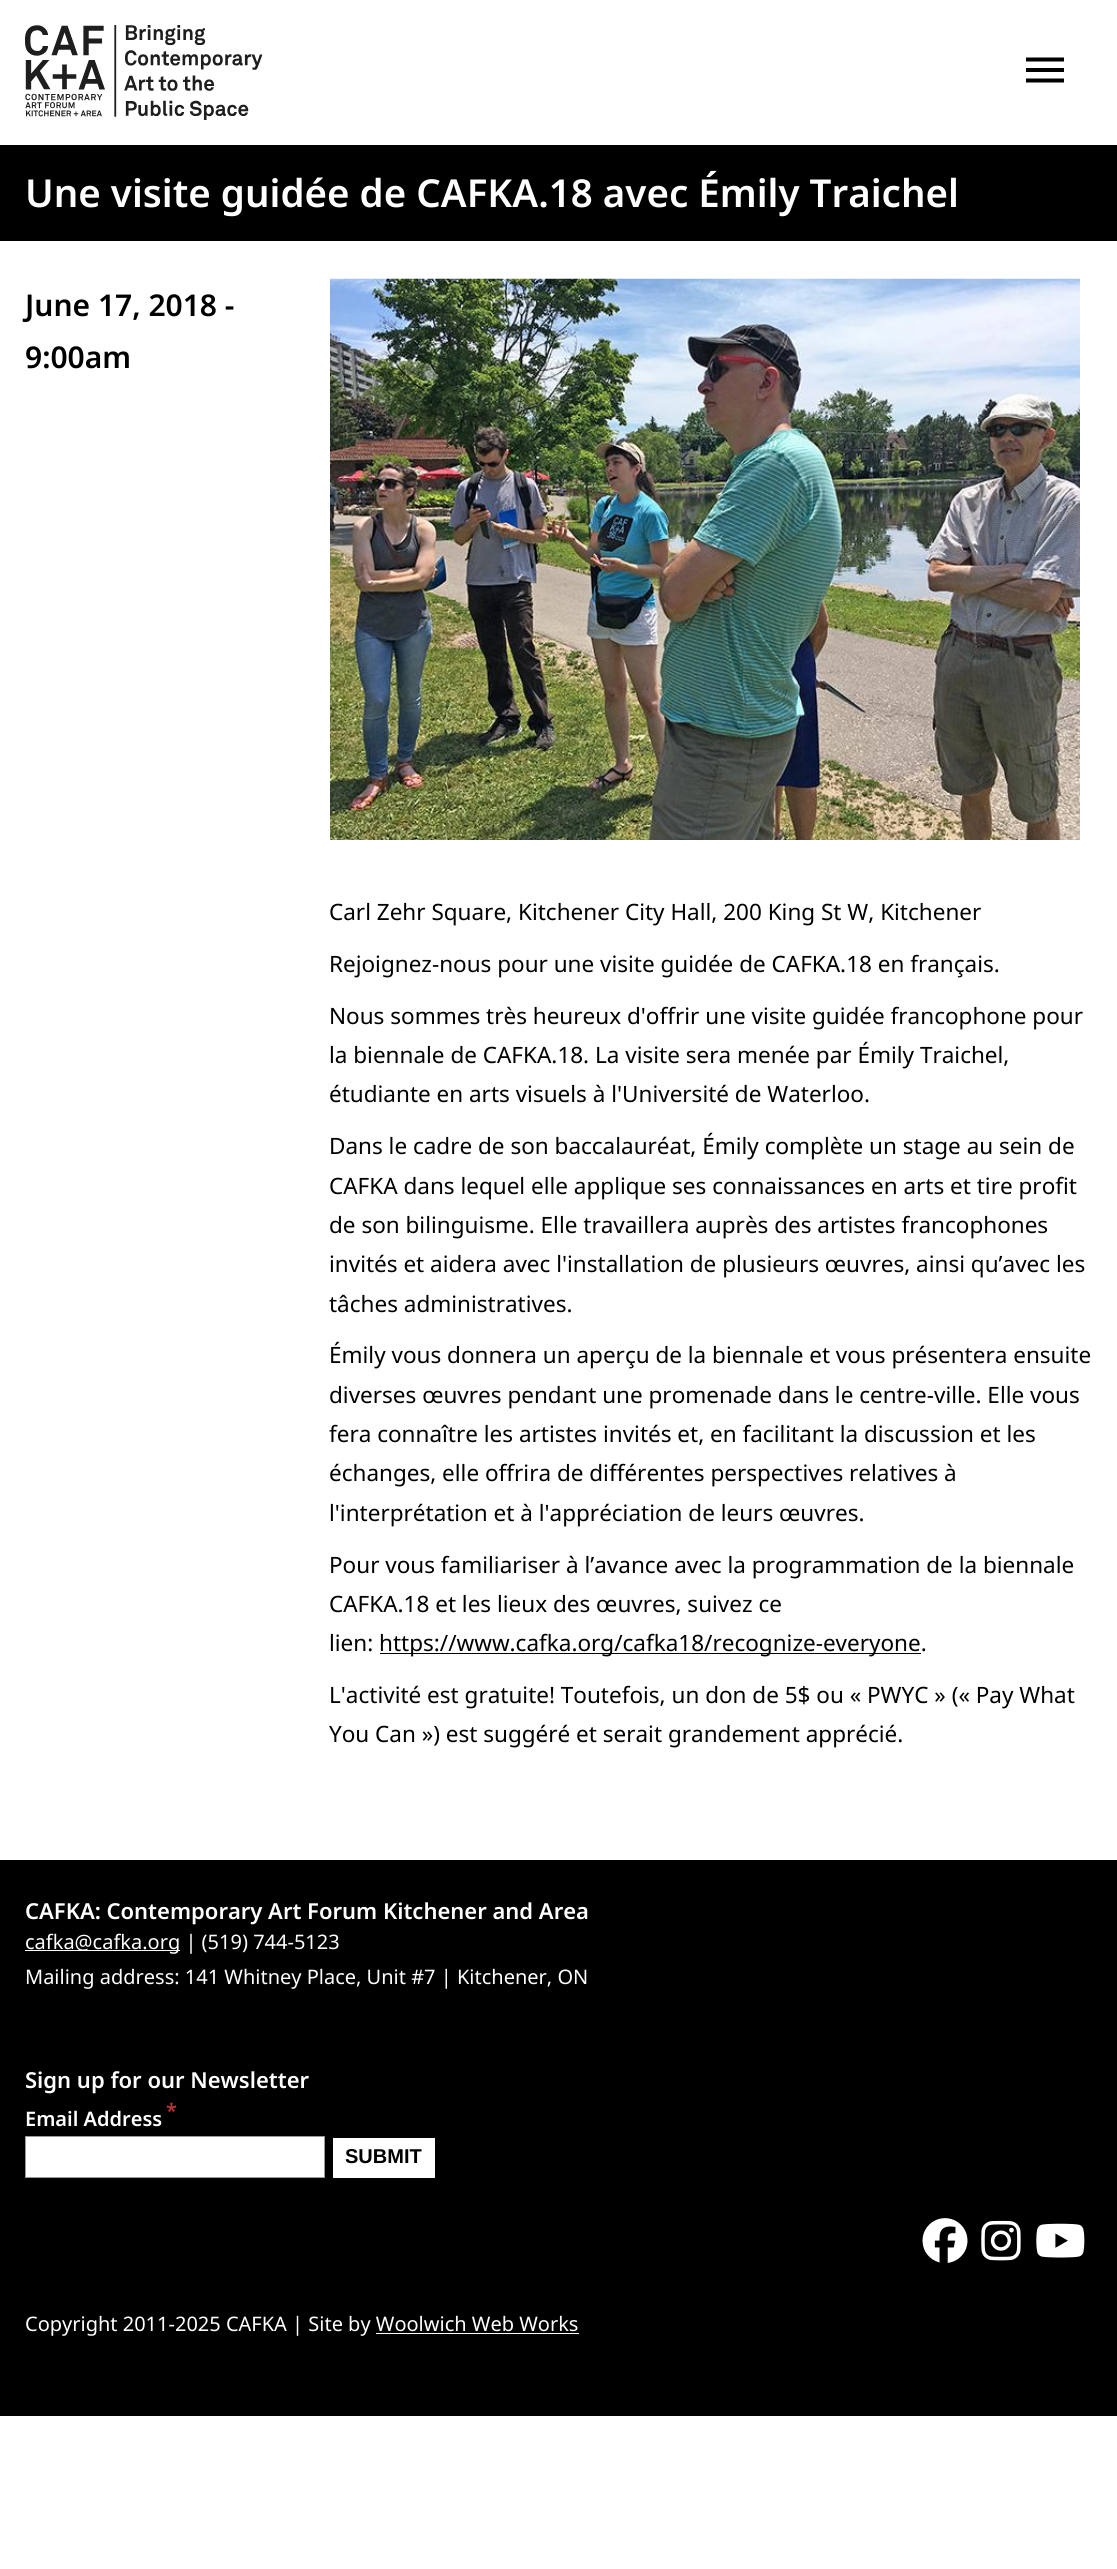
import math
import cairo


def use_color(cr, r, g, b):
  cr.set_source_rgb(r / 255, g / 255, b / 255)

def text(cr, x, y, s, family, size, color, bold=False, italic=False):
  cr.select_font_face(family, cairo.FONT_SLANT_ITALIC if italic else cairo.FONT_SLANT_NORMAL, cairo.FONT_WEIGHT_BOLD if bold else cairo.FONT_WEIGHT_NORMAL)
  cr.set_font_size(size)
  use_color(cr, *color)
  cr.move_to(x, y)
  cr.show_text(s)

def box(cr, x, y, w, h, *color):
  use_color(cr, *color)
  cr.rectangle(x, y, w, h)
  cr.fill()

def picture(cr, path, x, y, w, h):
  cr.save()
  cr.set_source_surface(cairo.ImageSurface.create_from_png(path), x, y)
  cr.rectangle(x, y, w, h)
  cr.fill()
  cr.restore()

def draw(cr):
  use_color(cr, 255, 255, 255)
  cr.paint()
  picture(cr, "img_01.png", 25, 25, 238, 95)
  use_color(cr, 0, 0, 0)
  cr.new_path()
  cr.move_to(1026, 57.5)
  cr.line_to(1064, 57.5)
  cr.line_to(1064, 61.5)
  cr.line_to(1026, 61.5)
  cr.line_to(1026, 57.5)
  cr.move_to(1026, 68)
  cr.line_to(1064, 68)
  cr.line_to(1064, 72)
  cr.line_to(1026, 72)
  cr.line_to(1026, 68)
  cr.move_to(1026, 78.5)
  cr.line_to(1064, 78.5)
  cr.line_to(1064, 82.5)
  cr.line_to(1026, 82.5)
  cr.close_path()
  cr.fill()
  box(cr, 0, 145, 1117, 96, 0, 0, 0)
  picture(cr, "img_02.png", 330, 278, 750, 562)
  box(cr, 380, 1653, 541, 1, 0, 0, 0)
  box(cr, 0, 1860, 1117, 556, 0, 0, 0)
  box(cr, 25, 1950, 155, 1, 255, 255, 255)
  cr.rectangle(25.5, 2136.5, 299, 41)
  cr.fill_preserve()
  use_color(cr, 153, 153, 153)
  cr.set_line_width(1)
  cr.stroke()
  box(cr, 333, 2138, 102, 40, 255, 255, 255)
  picture(cr, "img_03.png", 922, 2218, 46, 45)
  picture(cr, "img_04.png", 981, 2220, 40, 41)
  picture(cr, "img_05.png", 1036, 2223, 49, 35)
  box(cr, 376, 2333, 203, 1, 255, 255, 255)
  text(cr, 25, 207, "Une visite guidée de CAFKA.18 avec Émily Traichel", "Noto Sans SemiBold", 38.5, (255, 255, 255))
  text(cr, 25, 316, "June 17, 2018 -", "Noto Sans SemiBold", 30, (0, 0, 0))
  text(cr, 25, 368, "9:00am", "Noto Sans SemiBold", 30, (0, 0, 0))
  text(cr, 329, 920, "Carl Zehr Square, Kitchener City Hall, 200 King St W, Kitchener", "Noto Sans", 22.5, (0, 0, 0))
  text(cr, 329, 972, "Rejoignez-nous pour une visite guidée de CAFKA.18 en français.", "Noto Sans", 22.5, (0, 0, 0))
  text(cr, 329, 1024, "Nous sommes très heureux d'offrir une visite guidée francophone pour", "Noto Sans", 22.5, (0, 0, 0))
  text(cr, 329, 1063, "la biennale de CAFKA.18. La visite sera menée par Émily Traichel,", "Noto Sans", 22.5, (0, 0, 0))
  text(cr, 329, 1102, "étudiante en arts visuels à l'Université de Waterloo.", "Noto Sans", 22.5, (0, 0, 0))
  text(cr, 329, 1154, "Dans le cadre de son baccalauréat, Émily complète un stage au sein de", "Noto Sans", 22.5, (0, 0, 0))
  text(cr, 329, 1194, "CAFKA dans lequel elle applique ses connaissances en arts et tire profit", "Noto Sans", 22.5, (0, 0, 0))
  text(cr, 329, 1233, "de son bilinguisme. Elle travaillera auprès des artistes francophones", "Noto Sans", 22.5, (0, 0, 0))
  text(cr, 329, 1272, "invités et aidera avec l'installation de plusieurs œuvres, ainsi qu’avec les", "Noto Sans", 22.5, (0, 0, 0))
  text(cr, 329, 1312, "tâches administratives.", "Noto Sans", 22.5, (0, 0, 0))
  text(cr, 329, 1363, "Émily vous donnera un aperçu de la biennale et vous présentera ensuite", "Noto Sans", 22.5, (0, 0, 0))
  text(cr, 329, 1403, "diverses œuvres pendant une promenade dans le centre-ville. Elle vous", "Noto Sans", 22.5, (0, 0, 0))
  text(cr, 329, 1442, "fera connaître les artistes invités et, en facilitant la discussion et les", "Noto Sans", 22.5, (0, 0, 0))
  text(cr, 329, 1481, "échanges, elle offrira de différentes perspectives relatives à", "Noto Sans", 22.5, (0, 0, 0))
  text(cr, 329, 1521, "l'interprétation et à l'appréciation de leurs œuvres.", "Noto Sans", 22.5, (0, 0, 0))
  text(cr, 329, 1573, "Pour vous familiariser à l’avance avec la programmation de la biennale", "Noto Sans", 22.5, (0, 0, 0))
  text(cr, 329, 1612, "CAFKA.18 et les lieux des œuvres, suivez ce", "Noto Sans", 22.5, (0, 0, 0))
  text(cr, 329, 1651, "lien:", "Noto Sans", 22.5, (0, 0, 0))
  text(cr, 379, 1651, "https://www.cafka.org/cafka18/recognize-everyone.", "Noto Sans", 22.5, (0, 0, 0))
  text(cr, 329, 1703, "L'activité est gratuite! Toutefois, un don de 5$ ou « PWYC » (« Pay What", "Noto Sans", 22.5, (0, 0, 0))
  text(cr, 329, 1742, "You Can ») est suggéré et serait grandement apprécié.", "Noto Sans", 22.5, (0, 0, 0))
  text(cr, 25, 1919, "CAFKA: Contemporary Art Forum Kitchener and Area", "Noto Sans SemiBold", 22, (255, 255, 255))
  text(cr, 25, 1949, "cafka@cafka.org | (519) 744-5123", "Noto Sans", 20, (255, 255, 255))
  text(cr, 25, 1984, "Mailing address: 141 Whitney Place, Unit #7 | Kitchener, ON", "Noto Sans", 20, (255, 255, 255))
  text(cr, 25, 2088, "Sign up for our Newsletter", "Noto Sans SemiBold", 22, (255, 255, 255))
  text(cr, 166, 2118, "*", "Noto Sans SemiBold", 20, (187, 53, 53))
  text(cr, 25, 2126, "Email Address", "Noto Sans SemiBold", 20, (255, 255, 255))
  text(cr, 345, 2163, "SUBMIT", "Liberation Sans", 20, (0, 0, 0), bold=True)
  text(cr, 25, 2331, "Copyright 2011-2025 CAFKA | Site by Woolwich Web Works", "Noto Sans", 20, (255, 255, 255))


surface = cairo.ImageSurface(cairo.FORMAT_RGB24, 1117, 2569)
cr = cairo.Context(surface)
options = cairo.FontOptions()
options.set_hint_metrics(cairo.HINT_METRICS_OFF)
options.set_hint_style(cairo.HINT_STYLE_NONE)
cr.set_font_options(options)
cr.set_miter_limit(4)
draw(cr)
surface.write_to_png("out.png")
